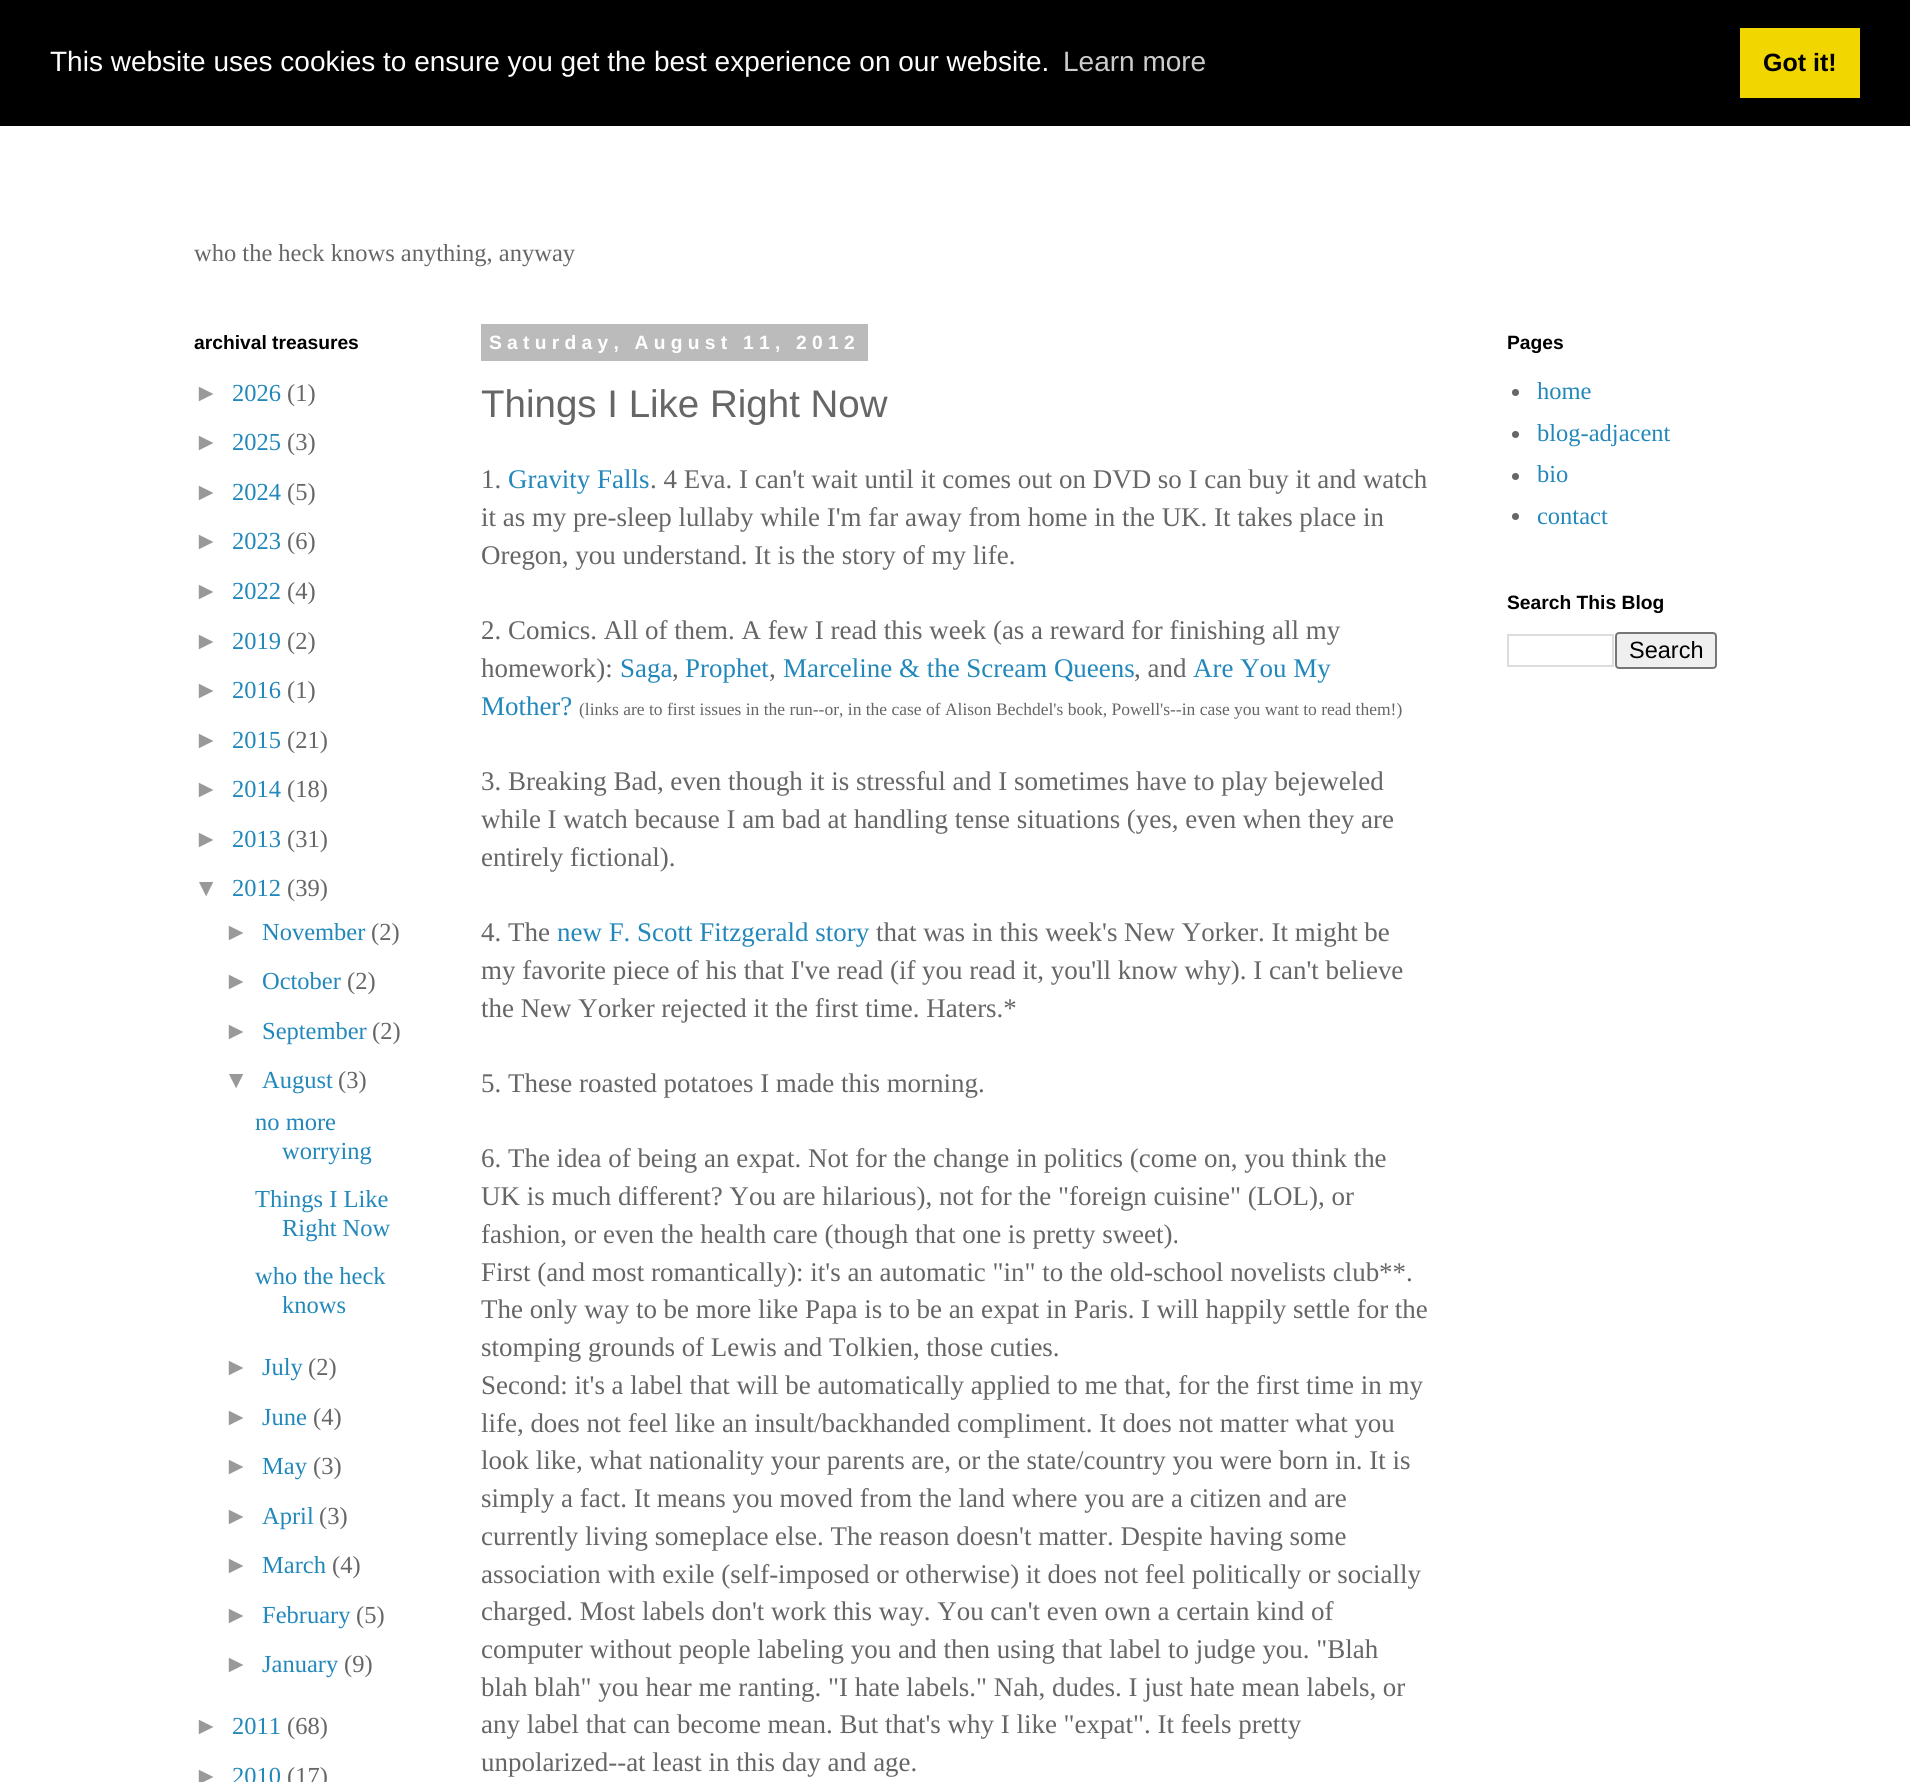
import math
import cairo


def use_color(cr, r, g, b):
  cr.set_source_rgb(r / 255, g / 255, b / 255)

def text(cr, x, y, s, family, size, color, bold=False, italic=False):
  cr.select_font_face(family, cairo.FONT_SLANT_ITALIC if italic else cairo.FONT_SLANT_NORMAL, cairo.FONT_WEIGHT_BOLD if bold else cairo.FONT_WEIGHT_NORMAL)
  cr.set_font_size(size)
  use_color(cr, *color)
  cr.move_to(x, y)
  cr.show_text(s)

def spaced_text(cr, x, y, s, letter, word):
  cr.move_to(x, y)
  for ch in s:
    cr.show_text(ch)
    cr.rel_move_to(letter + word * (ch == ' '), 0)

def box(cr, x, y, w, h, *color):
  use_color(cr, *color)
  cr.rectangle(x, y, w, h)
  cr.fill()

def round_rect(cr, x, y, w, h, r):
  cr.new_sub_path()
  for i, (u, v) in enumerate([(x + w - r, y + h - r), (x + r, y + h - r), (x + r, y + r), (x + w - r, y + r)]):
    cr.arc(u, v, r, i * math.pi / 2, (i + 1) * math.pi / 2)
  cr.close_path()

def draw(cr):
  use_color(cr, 255, 255, 255)
  cr.paint()
  box(cr, 0, 0, 1910, 126, 0, 0, 0)
  box(cr, 1740, 28, 120, 70, 241, 214, 0)
  box(cr, 481, 324, 387, 37, 187, 187, 187)
  use_color(cr, 102, 102, 102)
  cr.arc(1515.5, 392.5, 3.5, 0, 2 * math.pi)
  cr.fill()
  cr.arc(1515.5, 434.5, 3.5, 0, 2 * math.pi)
  cr.fill()
  cr.arc(1515.5, 476.5, 3.5, 0, 2 * math.pi)
  cr.fill()
  cr.arc(1515.5, 516.5, 3.5, 0, 2 * math.pi)
  cr.fill()
  cr.rectangle(1508, 635, 105, 31)
  use_color(cr, 221, 221, 221)
  cr.stroke()
  use_color(cr, 239, 239, 239)
  round_rect(cr, 1616, 633, 100, 35, 3)
  cr.fill_preserve()
  use_color(cr, 118, 118, 118)
  cr.stroke()
  text(cr, 50, 71, "This website uses cookies to ensure you get the best experience on our website.", "Liberation Sans", 28, (255, 255, 255))
  text(cr, 1063, 71, "Learn more", "Liberation Sans", 28, (204, 204, 204))
  text(cr, 1763, 71, "Got it!", "Liberation Sans", 25, (0, 0, 0), bold=True)
  text(cr, 194, 261, "who the heck knows anything, anyway", "Liberation Serif", 24.5, (102, 102, 102))
  text(cr, 194, 349, "archival treasures", "Liberation Sans", 19.25, (0, 0, 0), bold=True)
  text(cr, 194, 401, "►", "Liberation Sans", 24.5, (153, 153, 153))
  text(cr, 232, 401, "2026", "Liberation Serif", 24.5, (34, 136, 187))
  text(cr, 287, 401, "(1)", "Liberation Serif", 24.5, (102, 102, 102))
  text(cr, 194, 450, "►", "Liberation Sans", 24.5, (153, 153, 153))
  text(cr, 232, 450, "2025", "Liberation Serif", 24.5, (34, 136, 187))
  text(cr, 287, 450, "(3)", "Liberation Serif", 24.5, (102, 102, 102))
  text(cr, 194, 500, "►", "Liberation Sans", 24.5, (153, 153, 153))
  text(cr, 232, 500, "2024", "Liberation Serif", 24.5, (34, 136, 187))
  text(cr, 287, 500, "(5)", "Liberation Serif", 24.5, (102, 102, 102))
  text(cr, 194, 549, "►", "Liberation Sans", 24.5, (153, 153, 153))
  text(cr, 232, 549, "2023", "Liberation Serif", 24.5, (34, 136, 187))
  text(cr, 287, 549, "(6)", "Liberation Serif", 24.5, (102, 102, 102))
  text(cr, 194, 599, "►", "Liberation Sans", 24.5, (153, 153, 153))
  text(cr, 232, 599, "2022", "Liberation Serif", 24.5, (34, 136, 187))
  text(cr, 287, 599, "(4)", "Liberation Serif", 24.5, (102, 102, 102))
  text(cr, 194, 649, "►", "Liberation Sans", 24.5, (153, 153, 153))
  text(cr, 232, 649, "2019", "Liberation Serif", 24.5, (34, 136, 187))
  text(cr, 287, 649, "(2)", "Liberation Serif", 24.5, (102, 102, 102))
  text(cr, 194, 698, "►", "Liberation Sans", 24.5, (153, 153, 153))
  text(cr, 232, 698, "2016", "Liberation Serif", 24.5, (34, 136, 187))
  text(cr, 287, 698, "(1)", "Liberation Serif", 24.5, (102, 102, 102))
  text(cr, 194, 748, "►", "Liberation Sans", 24.5, (153, 153, 153))
  text(cr, 232, 748, "2015", "Liberation Serif", 24.5, (34, 136, 187))
  text(cr, 287, 748, "(21)", "Liberation Serif", 24.5, (102, 102, 102))
  text(cr, 194, 797, "►", "Liberation Sans", 24.5, (153, 153, 153))
  text(cr, 232, 797, "2014", "Liberation Serif", 24.5, (34, 136, 187))
  text(cr, 287, 797, "(18)", "Liberation Serif", 24.5, (102, 102, 102))
  text(cr, 194, 847, "►", "Liberation Sans", 24.5, (153, 153, 153))
  text(cr, 232, 847, "2013", "Liberation Serif", 24.5, (34, 136, 187))
  text(cr, 287, 847, "(31)", "Liberation Serif", 24.5, (102, 102, 102))
  text(cr, 194, 896, "▼", "Liberation Sans", 24.5, (153, 153, 153))
  text(cr, 232, 896, "2012", "Liberation Serif", 24.5, (34, 136, 187))
  text(cr, 287, 896, "(39)", "Liberation Serif", 24.5, (102, 102, 102))
  text(cr, 224, 940, "►", "Liberation Sans", 24.5, (153, 153, 153))
  text(cr, 262, 940, "November", "Liberation Serif", 24.5, (34, 136, 187))
  text(cr, 371, 940, "(2)", "Liberation Serif", 24.5, (102, 102, 102))
  text(cr, 224, 989, "►", "Liberation Sans", 24.5, (153, 153, 153))
  text(cr, 262, 989, "October", "Liberation Serif", 24.5, (34, 136, 187))
  text(cr, 347, 989, "(2)", "Liberation Serif", 24.5, (102, 102, 102))
  text(cr, 224, 1039, "►", "Liberation Sans", 24.5, (153, 153, 153))
  text(cr, 262, 1039, "September", "Liberation Serif", 24.5, (34, 136, 187))
  text(cr, 372, 1039, "(2)", "Liberation Serif", 24.5, (102, 102, 102))
  text(cr, 224, 1088, "▼", "Liberation Sans", 24.5, (153, 153, 153))
  text(cr, 262, 1088, "August", "Liberation Serif", 24.5, (34, 136, 187))
  text(cr, 338, 1088, "(3)", "Liberation Serif", 24.5, (102, 102, 102))
  text(cr, 255, 1130, "no more", "Liberation Serif", 24.5, (34, 136, 187))
  text(cr, 282, 1159, "worrying", "Liberation Serif", 24.5, (34, 136, 187))
  text(cr, 255, 1207, "Things I Like", "Liberation Serif", 24.5, (34, 136, 187))
  text(cr, 282, 1236, "Right Now", "Liberation Serif", 24.5, (34, 136, 187))
  text(cr, 255, 1284, "who the heck", "Liberation Serif", 24.5, (34, 136, 187))
  text(cr, 282, 1313, "knows", "Liberation Serif", 24.5, (34, 136, 187))
  text(cr, 224, 1375, "►", "Liberation Sans", 24.5, (153, 153, 153))
  text(cr, 262, 1375, "July", "Liberation Serif", 24.5, (34, 136, 187))
  text(cr, 308, 1375, "(2)", "Liberation Serif", 24.5, (102, 102, 102))
  text(cr, 224, 1425, "►", "Liberation Sans", 24.5, (153, 153, 153))
  text(cr, 262, 1425, "June", "Liberation Serif", 24.5, (34, 136, 187))
  text(cr, 313, 1425, "(4)", "Liberation Serif", 24.5, (102, 102, 102))
  text(cr, 224, 1474, "►", "Liberation Sans", 24.5, (153, 153, 153))
  text(cr, 262, 1474, "May", "Liberation Serif", 24.5, (34, 136, 187))
  text(cr, 313, 1474, "(3)", "Liberation Serif", 24.5, (102, 102, 102))
  text(cr, 224, 1524, "►", "Liberation Sans", 24.5, (153, 153, 153))
  text(cr, 262, 1524, "April", "Liberation Serif", 24.5, (34, 136, 187))
  text(cr, 319, 1524, "(3)", "Liberation Serif", 24.5, (102, 102, 102))
  text(cr, 224, 1573, "►", "Liberation Sans", 24.5, (153, 153, 153))
  text(cr, 262, 1573, "March", "Liberation Serif", 24.5, (34, 136, 187))
  text(cr, 332, 1573, "(4)", "Liberation Serif", 24.5, (102, 102, 102))
  text(cr, 224, 1623, "►", "Liberation Sans", 24.5, (153, 153, 153))
  text(cr, 262, 1623, "February", "Liberation Serif", 24.5, (34, 136, 187))
  text(cr, 356, 1623, "(5)", "Liberation Serif", 24.5, (102, 102, 102))
  text(cr, 224, 1672, "►", "Liberation Sans", 24.5, (153, 153, 153))
  text(cr, 262, 1672, "January", "Liberation Serif", 24.5, (34, 136, 187))
  text(cr, 344, 1672, "(9)", "Liberation Serif", 24.5, (102, 102, 102))
  text(cr, 194, 1734, "►", "Liberation Sans", 24.5, (153, 153, 153))
  text(cr, 232, 1734, "2011", "Liberation Serif", 24.5, (34, 136, 187))
  text(cr, 287, 1734, "(68)", "Liberation Serif", 24.5, (102, 102, 102))
  text(cr, 194, 1784, "►", "Liberation Sans", 24.5, (153, 153, 153))
  text(cr, 232, 1784, "2010", "Liberation Serif", 24.5, (34, 136, 187))
  text(cr, 287, 1784, "(17)", "Liberation Serif", 24.5, (102, 102, 102))
  cr.select_font_face("Liberation Sans", cairo.FONT_SLANT_NORMAL, cairo.FONT_WEIGHT_BOLD)
  cr.set_font_size(19.25)
  use_color(cr, 255, 255, 255)
  spaced_text(cr, 489, 349, "Saturday, August 11, 2012", 5.25, 0)
  text(cr, 481, 417, "Things I Like Right Now", "Liberation Sans", 38.5, (102, 102, 102))
  text(cr, 481, 488, "1.", "Liberation Serif", 26.95, (102, 102, 102))
  text(cr, 508, 488, "Gravity Falls", "Liberation Serif", 26.95, (34, 136, 187))
  text(cr, 650, 488, ". 4 Eva. I can't wait until it comes out on DVD so I can buy it and watch", "Liberation Serif", 26.95, (102, 102, 102))
  text(cr, 481, 526, "it as my pre-sleep lullaby while I'm far away from home in the UK. It takes place in", "Liberation Serif", 26.95, (102, 102, 102))
  text(cr, 481, 564, "Oregon, you understand. It is the story of my life.", "Liberation Serif", 26.95, (102, 102, 102))
  text(cr, 481, 639, "2. Comics. All of them. A few I read this week (as a reward for finishing all my", "Liberation Serif", 26.95, (102, 102, 102))
  text(cr, 481, 677, "homework):", "Liberation Serif", 26.95, (102, 102, 102))
  text(cr, 620, 677, "Saga", "Liberation Serif", 26.95, (34, 136, 187))
  text(cr, 672, 677, ",", "Liberation Serif", 26.95, (102, 102, 102))
  text(cr, 685, 677, "Prophet", "Liberation Serif", 26.95, (34, 136, 187))
  text(cr, 769, 677, ",", "Liberation Serif", 26.95, (102, 102, 102))
  text(cr, 783, 677, "Marceline & the Scream Queens", "Liberation Serif", 26.95, (34, 136, 187))
  text(cr, 1134, 677, ", and", "Liberation Serif", 26.95, (102, 102, 102))
  text(cr, 1193, 677, "Are You My", "Liberation Serif", 26.95, (34, 136, 187))
  text(cr, 481, 715, "Mother?", "Liberation Serif", 26.95, (34, 136, 187))
  text(cr, 579, 715, "(links are to first issues in the run--or, in the case of Alison Bechdel's book, Powell's--in case you want to read them!)", "Liberation Serif", 17.5, (102, 102, 102))
  text(cr, 481, 790, "3. Breaking Bad, even though it is stressful and I sometimes have to play bejeweled", "Liberation Serif", 26.95, (102, 102, 102))
  text(cr, 481, 828, "while I watch because I am bad at handling tense situations (yes, even when they are", "Liberation Serif", 26.95, (102, 102, 102))
  text(cr, 481, 866, "entirely fictional).", "Liberation Serif", 26.95, (102, 102, 102))
  text(cr, 481, 941, "4. The", "Liberation Serif", 26.95, (102, 102, 102))
  text(cr, 557, 941, "new F. Scott Fitzgerald story", "Liberation Serif", 26.95, (34, 136, 187))
  text(cr, 876, 941, "that was in this week's New Yorker. It might be", "Liberation Serif", 26.95, (102, 102, 102))
  text(cr, 481, 979, "my favorite piece of his that I've read (if you read it, you'll know why). I can't believe", "Liberation Serif", 26.95, (102, 102, 102))
  text(cr, 481, 1017, "the New Yorker rejected it the first time. Haters.*", "Liberation Serif", 26.95, (102, 102, 102))
  text(cr, 481, 1092, "5. These roasted potatoes I made this morning.", "Liberation Serif", 26.95, (102, 102, 102))
  text(cr, 481, 1167, "6. The idea of being an expat. Not for the change in politics (come on, you think the", "Liberation Serif", 26.95, (102, 102, 102))
  text(cr, 481, 1205, "UK is much different? You are hilarious), not for the \"foreign cuisine\" (LOL), or", "Liberation Serif", 26.95, (102, 102, 102))
  text(cr, 481, 1243, "fashion, or even the health care (though that one is pretty sweet).", "Liberation Serif", 26.95, (102, 102, 102))
  text(cr, 481, 1281, "First (and most romantically): it's an automatic \"in\" to the old-school novelists club**.", "Liberation Serif", 26.95, (102, 102, 102))
  text(cr, 481, 1318, "The only way to be more like Papa is to be an expat in Paris. I will happily settle for the", "Liberation Serif", 26.95, (102, 102, 102))
  text(cr, 481, 1356, "stomping grounds of Lewis and Tolkien, those cuties.", "Liberation Serif", 26.95, (102, 102, 102))
  text(cr, 481, 1394, "Second: it's a label that will be automatically applied to me that, for the first time in my", "Liberation Serif", 26.95, (102, 102, 102))
  text(cr, 481, 1432, "life, does not feel like an insult/backhanded compliment. It does not matter what you", "Liberation Serif", 26.95, (102, 102, 102))
  text(cr, 481, 1469, "look like, what nationality your parents are, or the state/country you were born in. It is", "Liberation Serif", 26.95, (102, 102, 102))
  text(cr, 481, 1507, "simply a fact. It means you moved from the land where you are a citizen and are", "Liberation Serif", 26.95, (102, 102, 102))
  text(cr, 481, 1545, "currently living someplace else. The reason doesn't matter. Despite having some", "Liberation Serif", 26.95, (102, 102, 102))
  text(cr, 481, 1583, "association with exile (self-imposed or otherwise) it does not feel politically or socially", "Liberation Serif", 26.95, (102, 102, 102))
  text(cr, 481, 1620, "charged. Most labels don't work this way. You can't even own a certain kind of", "Liberation Serif", 26.95, (102, 102, 102))
  text(cr, 481, 1658, "computer without people labeling you and then using that label to judge you. \"Blah", "Liberation Serif", 26.95, (102, 102, 102))
  text(cr, 481, 1696, "blah blah\" you hear me ranting. \"I hate labels.\" Nah, dudes. I just hate mean labels, or", "Liberation Serif", 26.95, (102, 102, 102))
  text(cr, 481, 1733, "any label that can become mean. But that's why I like \"expat\". It feels pretty", "Liberation Serif", 26.95, (102, 102, 102))
  text(cr, 481, 1771, "unpolarized--at least in this day and age.", "Liberation Serif", 26.95, (102, 102, 102))
  text(cr, 1507, 349, "Pages", "Liberation Sans", 19.25, (0, 0, 0), bold=True)
  text(cr, 1537, 399, "home", "Liberation Serif", 24.5, (34, 136, 187))
  text(cr, 1537, 441, "blog-adjacent", "Liberation Serif", 24.5, (34, 136, 187))
  text(cr, 1537, 482, "bio", "Liberation Serif", 24.5, (34, 136, 187))
  text(cr, 1537, 524, "contact", "Liberation Serif", 24.5, (34, 136, 187))
  text(cr, 1507, 609, "Search This Blog", "Liberation Sans", 19.25, (0, 0, 0), bold=True)
  text(cr, 1629, 658, "Search", "Liberation Sans", 23.5, (0, 0, 0))


surface = cairo.ImageSurface(cairo.FORMAT_RGB24, 1910, 1782)
cr = cairo.Context(surface)
options = cairo.FontOptions()
options.set_hint_metrics(cairo.HINT_METRICS_OFF)
options.set_hint_style(cairo.HINT_STYLE_NONE)
cr.set_font_options(options)
cr.set_miter_limit(4)
draw(cr)
surface.write_to_png("out.png")
